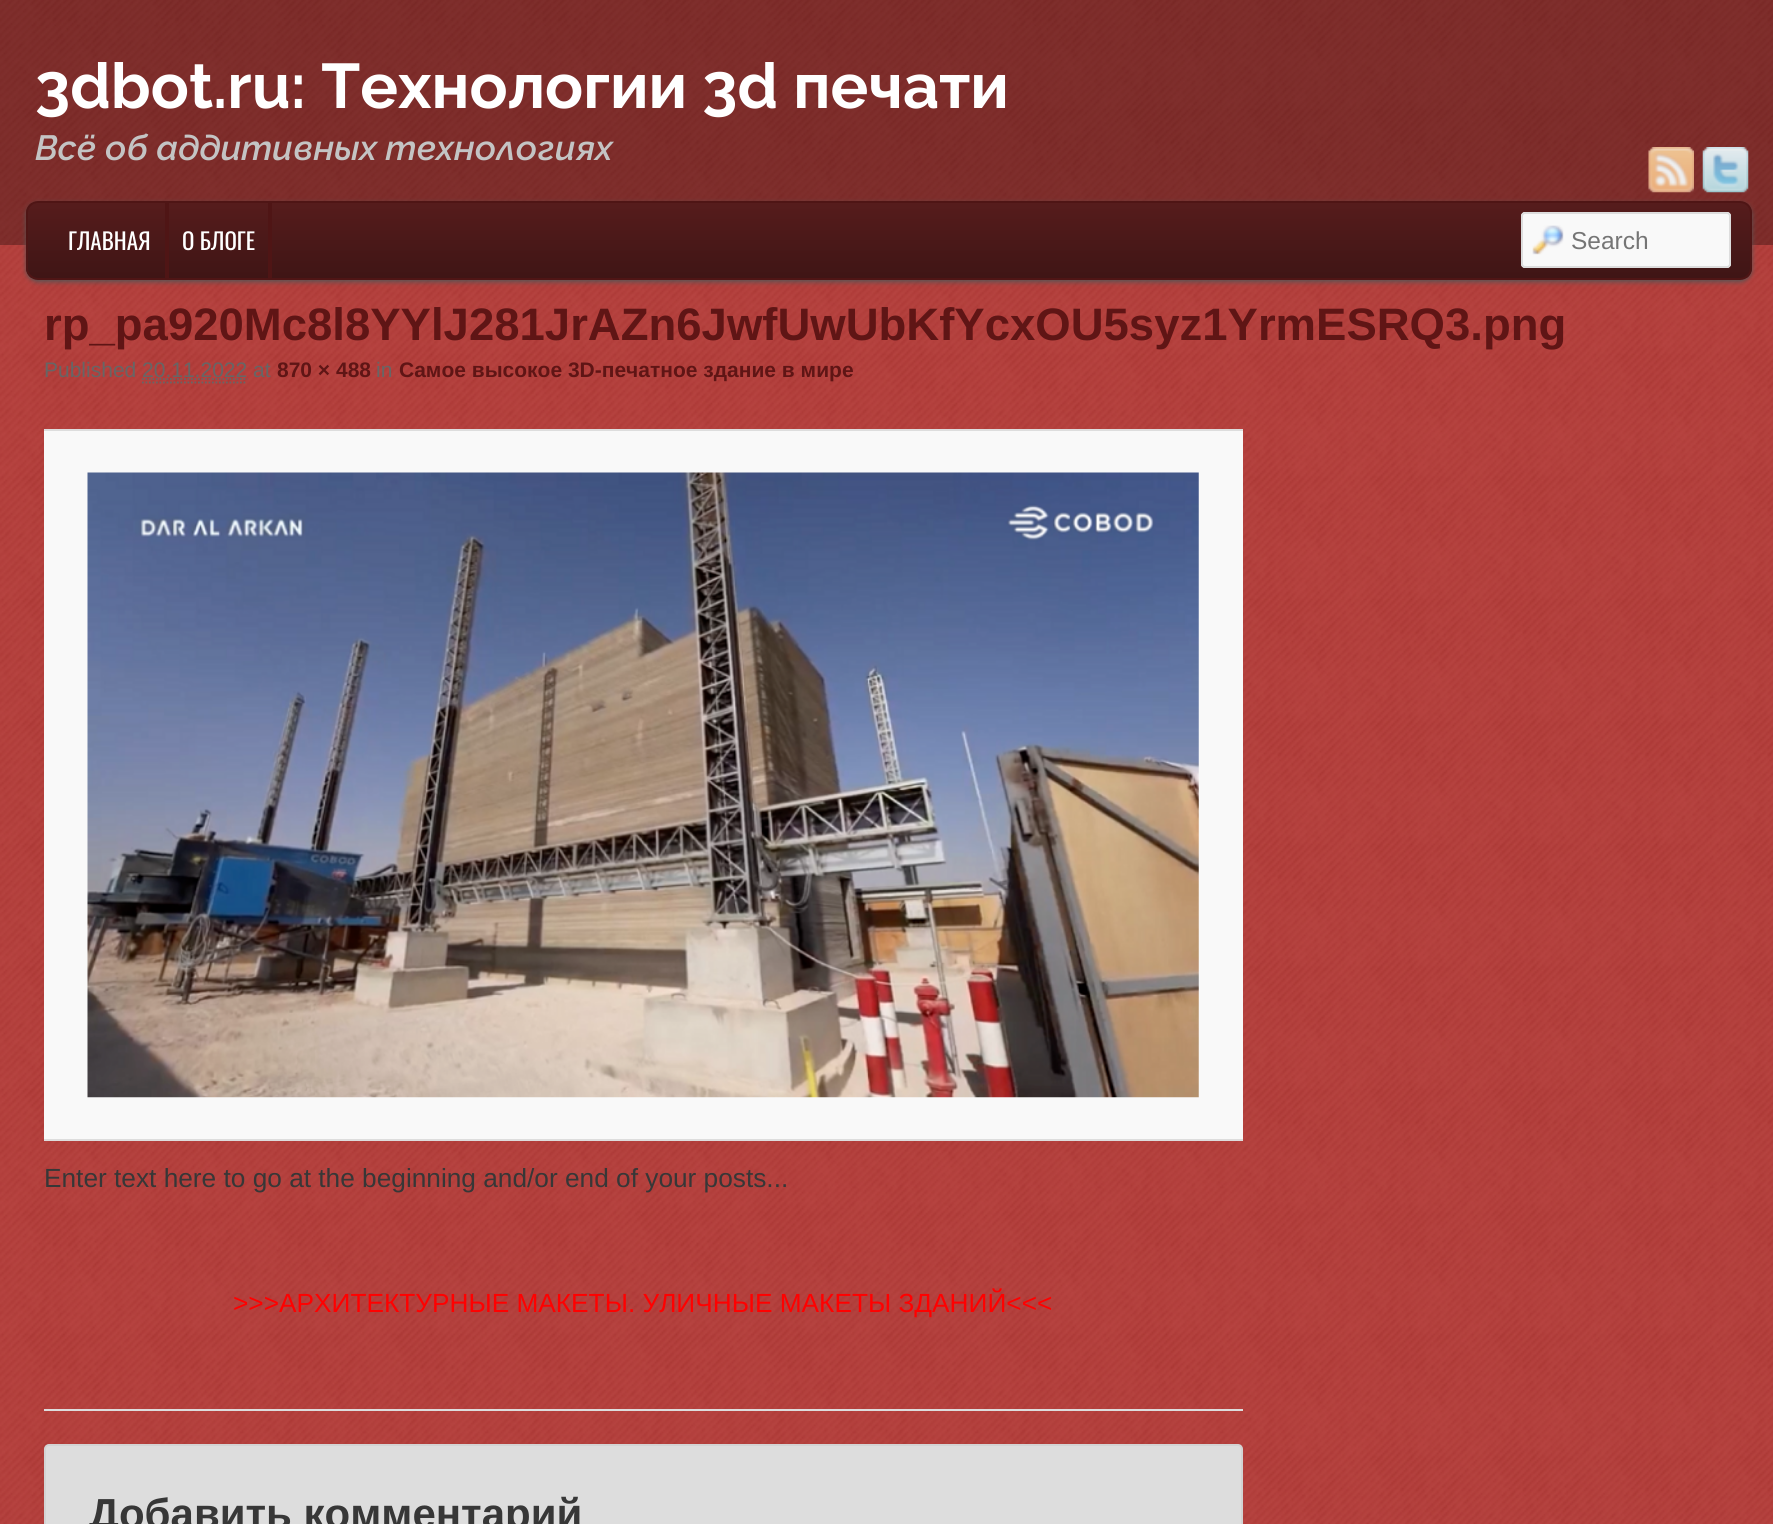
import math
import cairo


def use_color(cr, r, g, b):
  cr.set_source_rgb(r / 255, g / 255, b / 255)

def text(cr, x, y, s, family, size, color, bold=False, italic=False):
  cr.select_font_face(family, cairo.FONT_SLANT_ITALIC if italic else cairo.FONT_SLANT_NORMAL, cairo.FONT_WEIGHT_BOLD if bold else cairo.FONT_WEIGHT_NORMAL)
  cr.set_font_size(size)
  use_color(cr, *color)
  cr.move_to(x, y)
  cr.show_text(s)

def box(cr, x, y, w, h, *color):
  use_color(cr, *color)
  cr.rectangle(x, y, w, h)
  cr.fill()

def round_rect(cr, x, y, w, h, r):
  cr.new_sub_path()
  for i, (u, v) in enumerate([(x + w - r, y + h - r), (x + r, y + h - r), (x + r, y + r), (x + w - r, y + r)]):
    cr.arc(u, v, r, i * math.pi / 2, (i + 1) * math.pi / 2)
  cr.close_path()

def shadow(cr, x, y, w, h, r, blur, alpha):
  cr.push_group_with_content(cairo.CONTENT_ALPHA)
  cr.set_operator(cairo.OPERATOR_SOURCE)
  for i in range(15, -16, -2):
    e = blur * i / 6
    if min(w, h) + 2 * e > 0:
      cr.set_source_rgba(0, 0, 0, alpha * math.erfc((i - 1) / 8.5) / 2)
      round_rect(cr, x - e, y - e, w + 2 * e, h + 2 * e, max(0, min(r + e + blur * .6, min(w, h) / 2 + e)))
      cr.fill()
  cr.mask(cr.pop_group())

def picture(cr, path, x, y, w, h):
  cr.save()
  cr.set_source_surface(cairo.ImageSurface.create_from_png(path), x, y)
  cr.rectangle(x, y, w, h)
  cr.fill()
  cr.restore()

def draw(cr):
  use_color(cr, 255, 255, 255)
  cr.paint()
  picture(cr, "img_01.png", 0, 0, 1773, 1524)
  cr.set_source_rgba(0, 0, 0, 0.3)
  cr.rectangle(0, 0, 1773, 245)
  cr.fill()
  picture(cr, "img_02.png", 1648, 147, 46, 46)
  picture(cr, "img_03.png", 1702, 147, 47, 46)
  use_color(cr, 85, 85, 85)
  shadow(cr, 26, 203, 1726, 79, 12, 2.5, 1)
  cr.save()
  round_rect(cr, 26, 201, 1726, 79, 12)
  cr.clip()
  gradient = cairo.LinearGradient(889, 203, 889, 278)
  gradient.add_color_stop_rgba(0, 0.337, 0.11, 0.11, 1)
  gradient.add_color_stop_rgba(1, 0.247, 0.082, 0.082, 1)
  cr.set_source(gradient)
  cr.rectangle(26, 203, 1726, 75)
  cr.fill()
  cr.restore()
  round_rect(cr, 27, 202, 1724, 77, 11)
  use_color(cr, 79, 21, 21)
  cr.stroke()
  box(cr, 165, 203, 4, 75, 79, 21, 21)
  box(cr, 268, 203, 4, 75, 79, 21, 21)
  use_color(cr, 249, 249, 249)
  round_rect(cr, 1521, 212, 210, 56, 4)
  cr.fill()
  picture(cr, "img_04.png", 1532, 225, 32, 30)
  round_rect(cr, 1522, 213, 208, 54, 3)
  use_color(cr, 221, 221, 221)
  cr.stroke()
  box(cr, 44, 1409, 1199, 2, 221, 221, 221)
  cr.new_path()
  cr.move_to(142, 379)
  cr.line_to(247.5, 379)
  use_color(cr, 102, 102, 102)
  cr.set_line_width(1.8)
  cr.set_dash([1.75, 1.75])
  cr.stroke()
  cr.new_path()
  cr.move_to(142, 382.5)
  cr.line_to(247, 382.5)
  cr.stroke()
  box(cr, 44, 431, 1199, 708, 249, 249, 249)
  box(cr, 44, 429, 1199, 2, 221, 221, 221)
  box(cr, 44, 1139, 1199, 2, 221, 221, 221)
  picture(cr, "img_05.png", 87, 472, 1112, 626)
  round_rect(cr, 45, 1445, 1197, 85, 4)
  cr.fill_preserve()
  use_color(cr, 211, 211, 211)
  cr.set_line_width(2)
  cr.set_dash([])
  cr.stroke()
  text(cr, 35, 108, "3dbot.ru: Технологии 3d печати", "Raleway", 63, (255, 255, 255), bold=True)
  text(cr, 35, 160, "Всё об аддитивных технологиях", "Raleway SemiBold", 35, (196, 196, 196), italic=True)
  text(cr, 68, 250, "ГЛАВНАЯ", "Oswald", 23, (255, 255, 255))
  text(cr, 182, 250, "О БЛОГЕ", "Oswald", 23, (255, 255, 255))
  text(cr, 1571, 249, "Search", "Liberation Sans", 24.5, (117, 117, 117))
  text(cr, 44, 340, "rp_pa920Mc8l8YYlJ281JrAZn6JwfUwUbKfYcxOU5syz1YrmESRQ3.png", "Liberation Sans", 45.5, (95, 21, 21), bold=True)
  text(cr, 44, 377, "Published 20.11.2022 at", "Liberation Sans", 21, (102, 102, 102))
  text(cr, 277, 377, "870 × 488", "Liberation Sans", 21, (95, 21, 21), bold=True)
  text(cr, 376, 377, "in", "Liberation Sans", 21, (102, 102, 102))
  text(cr, 399, 377, "Самое высокое 3D-печатное здание в мире", "Liberation Sans", 21, (95, 21, 21), bold=True)
  text(cr, 44, 1187, "Enter text here to go at the beginning and/or end of your posts...", "Liberation Sans", 26.25, (55, 55, 55))
  text(cr, 233, 1312, ">>>АРХИТЕКТУРНЫЕ МАКЕТЫ. УЛИЧНЫЕ МАКЕТЫ ЗДАНИЙ<<<", "Liberation Sans", 26.25, (255, 0, 0))
  text(cr, 89, 1528, "Добавить комментарий", "Liberation Sans", 42, (55, 55, 55), bold=True)


surface = cairo.ImageSurface(cairo.FORMAT_RGB24, 1773, 1524)
cr = cairo.Context(surface)
options = cairo.FontOptions()
options.set_hint_metrics(cairo.HINT_METRICS_OFF)
options.set_hint_style(cairo.HINT_STYLE_NONE)
cr.set_font_options(options)
cr.set_miter_limit(4)
draw(cr)
surface.write_to_png("out.png")
